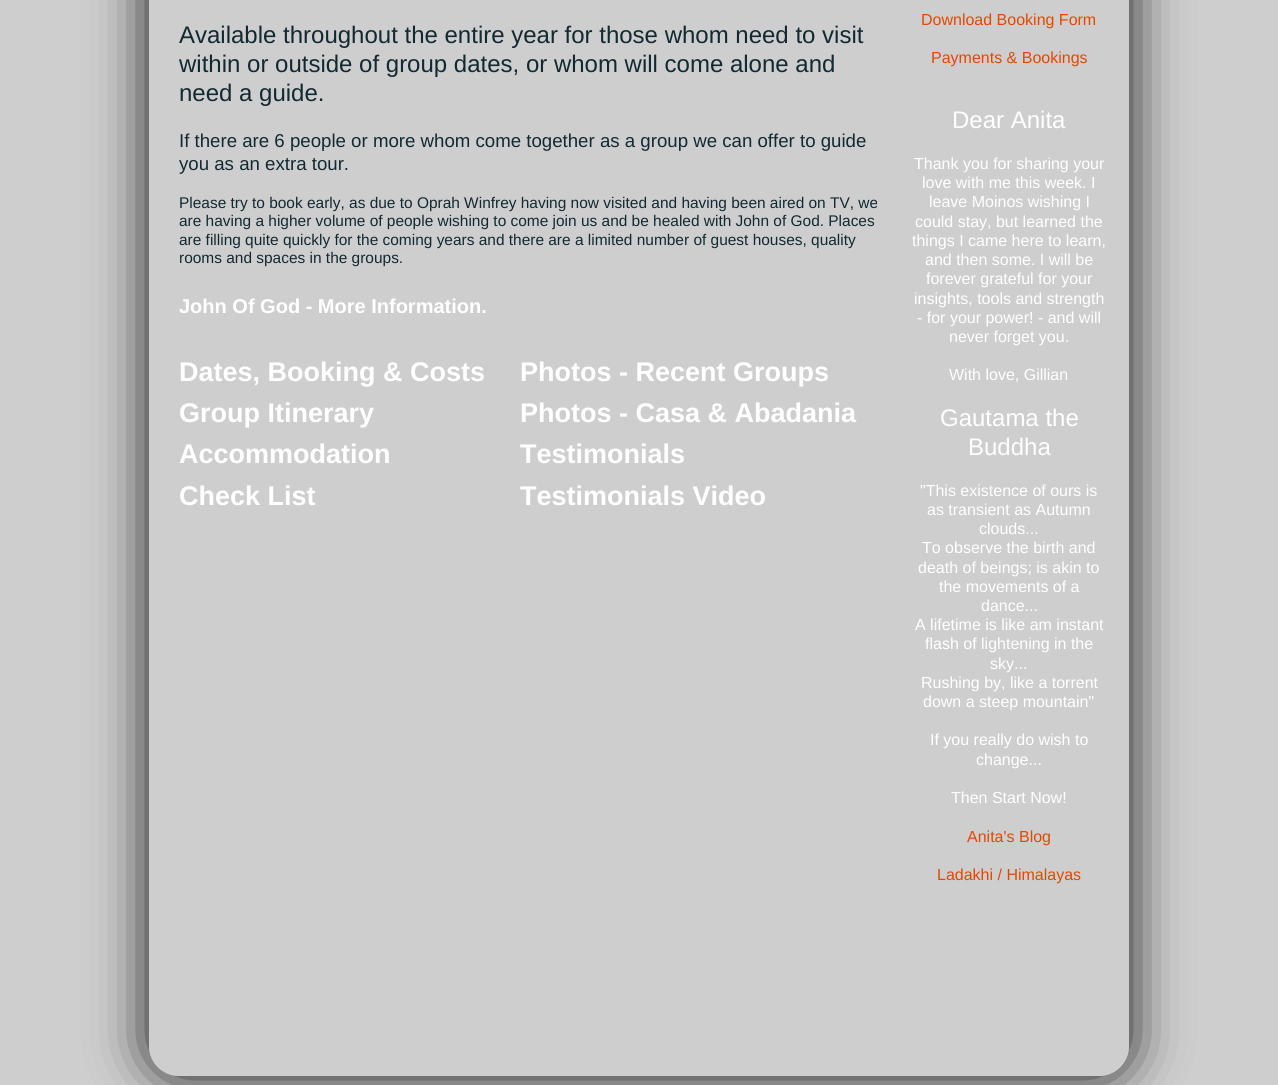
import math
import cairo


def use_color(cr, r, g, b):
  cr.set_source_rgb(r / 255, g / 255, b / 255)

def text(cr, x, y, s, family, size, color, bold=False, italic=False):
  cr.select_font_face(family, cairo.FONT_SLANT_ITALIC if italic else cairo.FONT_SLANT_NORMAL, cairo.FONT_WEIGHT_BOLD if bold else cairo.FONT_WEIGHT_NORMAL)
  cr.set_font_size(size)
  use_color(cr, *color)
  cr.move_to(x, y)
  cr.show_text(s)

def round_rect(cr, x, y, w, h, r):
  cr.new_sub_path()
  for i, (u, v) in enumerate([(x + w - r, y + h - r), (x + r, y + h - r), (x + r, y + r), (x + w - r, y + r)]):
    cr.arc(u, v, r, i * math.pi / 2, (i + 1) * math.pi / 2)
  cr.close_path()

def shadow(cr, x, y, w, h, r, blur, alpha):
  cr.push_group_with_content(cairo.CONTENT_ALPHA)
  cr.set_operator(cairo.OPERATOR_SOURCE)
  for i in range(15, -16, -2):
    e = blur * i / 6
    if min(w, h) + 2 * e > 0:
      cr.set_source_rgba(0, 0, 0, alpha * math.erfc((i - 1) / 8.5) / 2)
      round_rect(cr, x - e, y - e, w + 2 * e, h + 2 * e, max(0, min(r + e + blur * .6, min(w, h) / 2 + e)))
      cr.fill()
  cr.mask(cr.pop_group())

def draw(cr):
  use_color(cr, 206, 206, 206)
  cr.paint()
  cr.save()
  cr.set_fill_rule(cairo.FILL_RULE_EVEN_ODD)
  cr.new_path()
  cr.move_to(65, 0)
  cr.line_to(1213, 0)
  cr.line_to(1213, 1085)
  cr.line_to(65, 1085)
  cr.close_path()
  cr.move_to(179, -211)
  cr.line_to(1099, -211)
  cr.curve_to(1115.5, -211, 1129, -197.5, 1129, -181)
  cr.line_to(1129, 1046)
  cr.curve_to(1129, 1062.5, 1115.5, 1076, 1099, 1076)
  cr.line_to(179, 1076)
  cr.curve_to(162.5, 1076, 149, 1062.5, 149, 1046)
  cr.line_to(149, -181)
  cr.curve_to(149, -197.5, 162.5, -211, 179, -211)
  cr.close_path()
  cr.clip()
  use_color(cr, 0, 0, 0)
  shadow(cr, 149, -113, 980, 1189, 30, 27.5, 0.9)
  cr.restore()
  text(cr, 179, 43, "Available throughout the entire year for those whom need to visit", "Liberation Sans", 24, (18, 41, 50))
  text(cr, 179, 72, "within or outside of group dates, or whom will come alone and", "Liberation Sans", 24, (18, 41, 50))
  text(cr, 179, 101, "need a guide.", "Liberation Sans", 24, (18, 41, 50))
  text(cr, 179, 147, "If there are 6 people or more whom come together as a group we can offer to guide", "Liberation Sans", 18.65, (18, 41, 50))
  text(cr, 179, 170, "you as an extra tour.", "Liberation Sans", 18.65, (18, 41, 50))
  text(cr, 179, 208, "Please try to book early, as due to Oprah Winfrey having now visited and having been aired on TV, we", "Liberation Sans", 15.45, (18, 41, 50))
  text(cr, 179, 226, "are having a higher volume of people wishing to come join us and be healed with John of God. Places", "Liberation Sans", 15.45, (18, 41, 50))
  text(cr, 179, 245, "are filling quite quickly for the coming years and there are a limited number of guest houses, quality", "Liberation Sans", 15.45, (18, 41, 50))
  text(cr, 179, 263, "rooms and spaces in the groups.", "Liberation Sans", 15.45, (18, 41, 50))
  text(cr, 179, 313, "John Of God - More Information.", "Liberation Sans", 20, (255, 255, 255), bold=True)
  text(cr, 179, 381, "Dates, Booking & Costs", "Liberation Sans", 27, (255, 255, 255), bold=True)
  text(cr, 179, 422, "Group Itinerary", "Liberation Sans", 27, (255, 255, 255), bold=True)
  text(cr, 179, 463, "Accommodation", "Liberation Sans", 27, (255, 255, 255), bold=True)
  text(cr, 179, 505, "Check List", "Liberation Sans", 27, (255, 255, 255), bold=True)
  text(cr, 520, 381, "Photos - Recent Groups", "Liberation Sans", 27, (255, 255, 255), bold=True)
  text(cr, 520, 422, "Photos - Casa & Abadania", "Liberation Sans", 27, (255, 255, 255), bold=True)
  text(cr, 520, 463, "Testimonials", "Liberation Sans", 27, (255, 255, 255), bold=True)
  text(cr, 520, 505, "Testimonials Video", "Liberation Sans", 27, (255, 255, 255), bold=True)
  text(cr, 921, 25, "Download Booking Form", "Liberation Sans", 16, (225, 73, 0))
  text(cr, 931, 63, "Payments & Bookings", "Liberation Sans", 16, (225, 73, 0))
  text(cr, 952, 128, "Dear Anita", "Liberation Sans", 24, (255, 255, 255))
  text(cr, 914, 169, "Thank you for sharing your", "Liberation Sans", 16, (255, 255, 255))
  text(cr, 922, 188, "love with me this week. I", "Liberation Sans", 16, (255, 255, 255))
  text(cr, 929, 207, "leave Moinos wishing I", "Liberation Sans", 16, (255, 255, 255))
  text(cr, 915, 227, "could stay, but learned the", "Liberation Sans", 16, (255, 255, 255))
  text(cr, 912, 246, "things I came here to learn,", "Liberation Sans", 16, (255, 255, 255))
  text(cr, 925, 265, "and then some. I will be", "Liberation Sans", 16, (255, 255, 255))
  text(cr, 926, 284, "forever grateful for your", "Liberation Sans", 16, (255, 255, 255))
  text(cr, 914, 304, "insights, tools and strength", "Liberation Sans", 16, (255, 255, 255))
  text(cr, 917, 323, "- for your power! - and will", "Liberation Sans", 16, (255, 255, 255))
  text(cr, 949, 342, "never forget you.", "Liberation Sans", 16, (255, 255, 255))
  text(cr, 949, 380, "With love, Gillian", "Liberation Sans", 16, (255, 255, 255))
  text(cr, 940, 426, "Gautama the", "Liberation Sans", 24, (255, 255, 255))
  text(cr, 968, 455, "Buddha", "Liberation Sans", 24, (255, 255, 255))
  text(cr, 920, 496, "\"This existence of ours is", "Liberation Sans", 16, (255, 255, 255))
  text(cr, 927, 515, "as transient as Autumn", "Liberation Sans", 16, (255, 255, 255))
  text(cr, 979, 534, "clouds...", "Liberation Sans", 16, (255, 255, 255))
  text(cr, 922, 553, "To observe the birth and", "Liberation Sans", 16, (255, 255, 255))
  text(cr, 918, 573, "death of beings; is akin to", "Liberation Sans", 16, (255, 255, 255))
  text(cr, 939, 592, "the movements of a", "Liberation Sans", 16, (255, 255, 255))
  text(cr, 981, 611, "dance...", "Liberation Sans", 16, (255, 255, 255))
  text(cr, 915, 630, "A lifetime is like am instant", "Liberation Sans", 16, (255, 255, 255))
  text(cr, 925, 649, "flash of lightening in the", "Liberation Sans", 16, (255, 255, 255))
  text(cr, 990, 669, "sky...", "Liberation Sans", 16, (255, 255, 255))
  text(cr, 921, 688, "Rushing by, like a torrent", "Liberation Sans", 16, (255, 255, 255))
  text(cr, 923, 707, "down a steep mountain\"", "Liberation Sans", 16, (255, 255, 255))
  text(cr, 930, 745, "If you really do wish to", "Liberation Sans", 16, (255, 255, 255))
  text(cr, 976, 765, "change...", "Liberation Sans", 16, (255, 255, 255))
  text(cr, 951, 803, "Then Start Now!", "Liberation Sans", 16, (255, 255, 255))
  text(cr, 967, 842, "Anita's Blog", "Liberation Sans", 16, (225, 73, 0))
  text(cr, 937, 880, "Ladakhi / Himalayas", "Liberation Sans", 16, (225, 73, 0))


surface = cairo.ImageSurface(cairo.FORMAT_RGB24, 1278, 1085)
cr = cairo.Context(surface)
options = cairo.FontOptions()
options.set_hint_metrics(cairo.HINT_METRICS_OFF)
options.set_hint_style(cairo.HINT_STYLE_NONE)
cr.set_font_options(options)
cr.set_miter_limit(4)
draw(cr)
surface.write_to_png("out.png")
